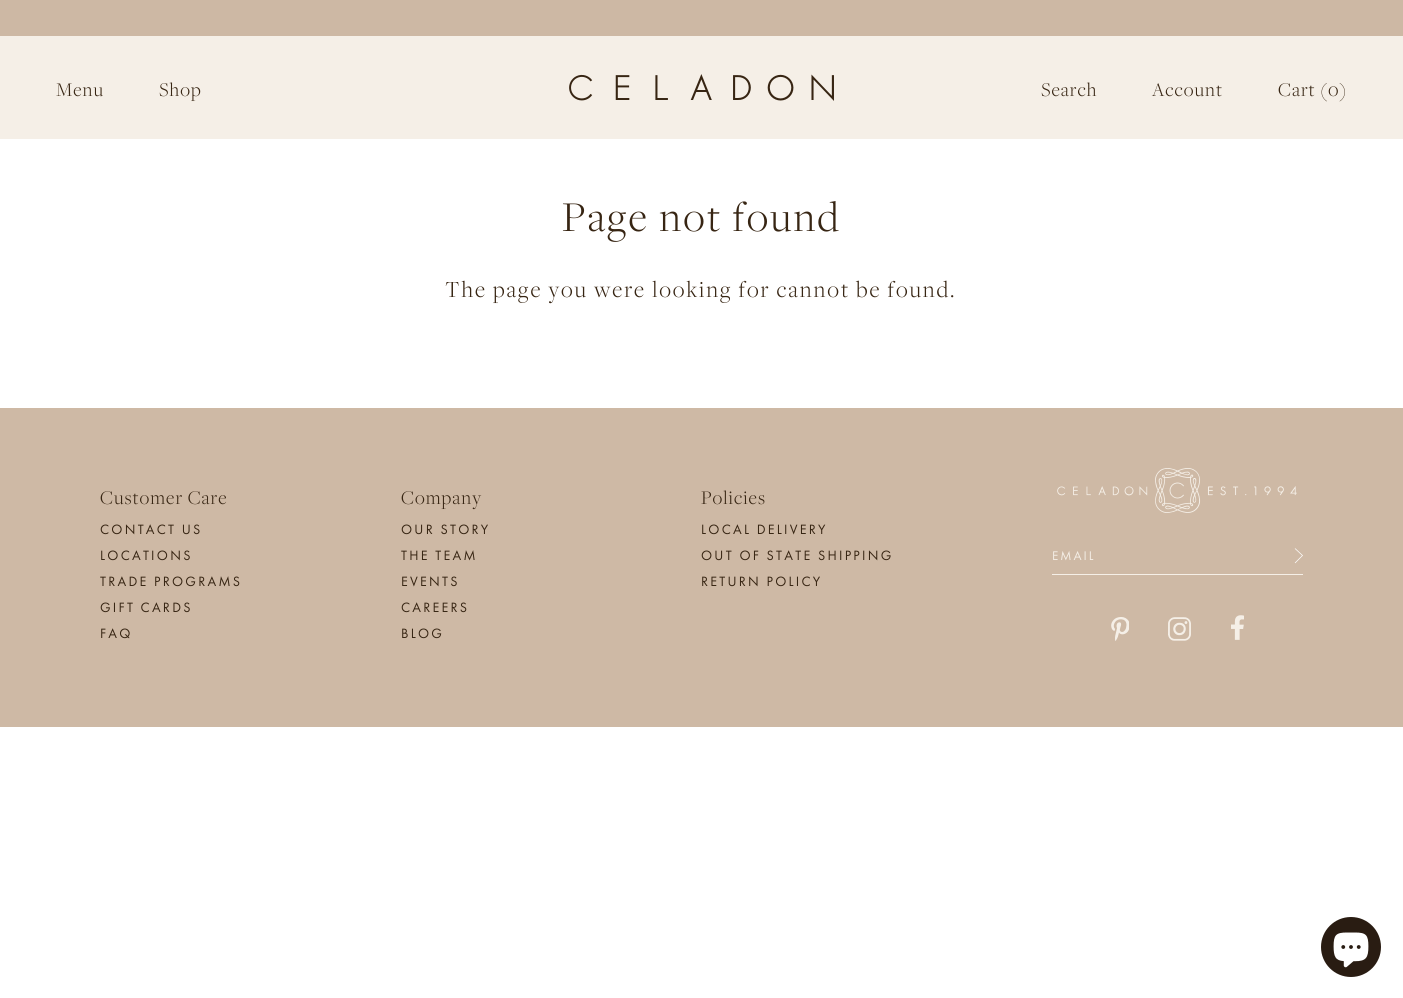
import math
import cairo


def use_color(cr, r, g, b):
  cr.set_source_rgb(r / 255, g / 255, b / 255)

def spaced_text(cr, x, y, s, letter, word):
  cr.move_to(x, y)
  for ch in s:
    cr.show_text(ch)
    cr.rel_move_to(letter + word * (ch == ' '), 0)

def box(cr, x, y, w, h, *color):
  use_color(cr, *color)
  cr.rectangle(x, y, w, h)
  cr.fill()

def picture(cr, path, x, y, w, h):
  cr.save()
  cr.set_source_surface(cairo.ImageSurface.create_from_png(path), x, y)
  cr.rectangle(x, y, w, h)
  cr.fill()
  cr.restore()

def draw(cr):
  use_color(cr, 255, 255, 255)
  cr.paint()
  box(cr, 0, 0, 1403, 36, 205, 184, 164)
  box(cr, 0, 36, 1403, 103, 245, 239, 231)
  picture(cr, "img_01.png", 569, 74, 265, 27)
  box(cr, 0, 408, 1403, 319, 206, 185, 165)
  picture(cr, "img_02.png", 1057, 468, 240, 45)
  box(cr, 1052, 574, 251, 1, 245, 239, 231)
  cr.new_path()
  cr.move_to(1295, 548.5)
  cr.line_to(1302.5, 555.5)
  cr.line_to(1295, 563)
  use_color(cr, 255, 255, 255)
  cr.set_line_width(0.7)
  cr.stroke()
  picture(cr, "img_03.png", 1111, 617, 18, 24)
  picture(cr, "img_04.png", 1168, 617, 23, 24)
  picture(cr, "img_05.png", 1231, 615, 13, 25)
  use_color(cr, 41, 28, 18)
  cr.arc(1351, 947, 30, 0, 2 * math.pi)
  cr.fill()
  picture(cr, "img_06.png", 1333, 932, 36, 36)
  cr.select_font_face("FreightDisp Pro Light")
  cr.set_font_size(20)
  use_color(cr, 55, 37, 19)
  spaced_text(cr, 56, 96, "Menu", 1, 0)
  spaced_text(cr, 159, 96, "Shop", 1, 0)
  spaced_text(cr, 1041, 96, "Search", 1, 0)
  spaced_text(cr, 1152, 96, "Account", 1, 0)
  spaced_text(cr, 1278, 96, "Cart (0)", 1, 0)
  cr.set_font_size(44)
  spaced_text(cr, 562, 231, "Page not found", 2.25, 0)
  cr.set_font_size(24)
  spaced_text(cr, 445, 297, "The page you were looking for cannot be found.", 1.9, 0)
  cr.set_font_size(20)
  spaced_text(cr, 100, 504, "Customer Care", 1, 0)
  cr.select_font_face("Futura PT")
  cr.set_font_size(14)
  spaced_text(cr, 100, 534, "CONTACT US", 2.25, 0)
  spaced_text(cr, 100, 560, "LOCATIONS", 2.25, 0)
  spaced_text(cr, 100, 586, "TRADE PROGRAMS", 2.25, 0)
  spaced_text(cr, 100, 612, "GIFT CARDS", 2.25, 0)
  spaced_text(cr, 100, 638, "FAQ", 2.25, 0)
  cr.select_font_face("FreightDisp Pro Light")
  cr.set_font_size(20)
  spaced_text(cr, 401, 504, "Company", 1, 0)
  cr.select_font_face("Futura PT")
  cr.set_font_size(14)
  spaced_text(cr, 401, 534, "OUR STORY", 2.25, 0)
  spaced_text(cr, 401, 560, "THE TEAM", 2.25, 0)
  spaced_text(cr, 401, 586, "EVENTS", 2.25, 0)
  spaced_text(cr, 401, 612, "CAREERS", 2.25, 0)
  spaced_text(cr, 401, 638, "BLOG", 2.25, 0)
  cr.select_font_face("FreightDisp Pro Light")
  cr.set_font_size(20)
  spaced_text(cr, 701, 504, "Policies", 1, 0)
  cr.select_font_face("Futura PT")
  cr.set_font_size(14)
  spaced_text(cr, 701, 534, "LOCAL DELIVERY", 2.25, 0)
  spaced_text(cr, 701, 560, "OUT OF STATE SHIPPING", 2.25, 0)
  spaced_text(cr, 701, 586, "RETURN POLICY", 2.25, 0)
  cr.set_font_size(13)
  use_color(cr, 245, 239, 231)
  spaced_text(cr, 1052, 560, "EMAIL", 2, 0)


surface = cairo.ImageSurface(cairo.FORMAT_RGB24, 1403, 998)
cr = cairo.Context(surface)
options = cairo.FontOptions()
options.set_hint_metrics(cairo.HINT_METRICS_OFF)
options.set_hint_style(cairo.HINT_STYLE_NONE)
cr.set_font_options(options)
cr.set_miter_limit(4)
draw(cr)
surface.write_to_png("out.png")
